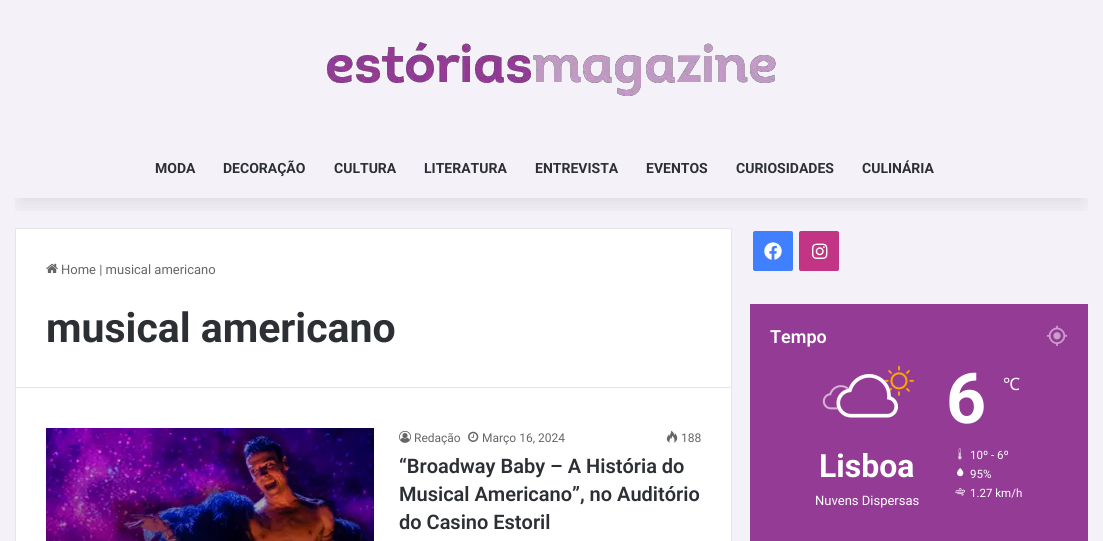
import math
import cairo


def use_color(cr, r, g, b):
  cr.set_source_rgb(r / 255, g / 255, b / 255)

def text(cr, x, y, s, family, size, color, bold=False, italic=False):
  cr.select_font_face(family, cairo.FONT_SLANT_ITALIC if italic else cairo.FONT_SLANT_NORMAL, cairo.FONT_WEIGHT_BOLD if bold else cairo.FONT_WEIGHT_NORMAL)
  cr.set_font_size(size)
  use_color(cr, *color)
  cr.move_to(x, y)
  cr.show_text(s)

def box(cr, x, y, w, h, *color):
  use_color(cr, *color)
  cr.rectangle(x, y, w, h)
  cr.fill()

def round_rect(cr, x, y, w, h, r):
  cr.new_sub_path()
  for i, (u, v) in enumerate([(x + w - r, y + h - r), (x + r, y + h - r), (x + r, y + r), (x + w - r, y + r)]):
    cr.arc(u, v, r, i * math.pi / 2, (i + 1) * math.pi / 2)
  cr.close_path()

def shadow(cr, x, y, w, h, r, blur, alpha):
  cr.push_group_with_content(cairo.CONTENT_ALPHA)
  cr.set_operator(cairo.OPERATOR_SOURCE)
  for i in range(15, -16, -2):
    e = blur * i / 6
    if min(w, h) + 2 * e > 0:
      cr.set_source_rgba(0, 0, 0, alpha * math.erfc((i - 1) / 8.5) / 2)
      round_rect(cr, x - e, y - e, w + 2 * e, h + 2 * e, max(0, min(r + e + blur * .6, min(w, h) / 2 + e)))
      cr.fill()
  cr.mask(cr.pop_group())

def picture(cr, path, x, y, w, h):
  cr.save()
  cr.set_source_surface(cairo.ImageSurface.create_from_png(path), x, y)
  cr.rectangle(x, y, w, h)
  cr.fill()
  cr.restore()

def draw(cr):
  use_color(cr, 245, 241, 248)
  cr.paint()
  use_color(cr, 255, 255, 255)
  cr.new_path()
  cr.move_to(17, 228.5)
  cr.line_to(730, 228.5)
  cr.curve_to(731, 228.5, 731.5, 229, 731.5, 230)
  cr.line_to(731.5, 387.5)
  cr.line_to(15.5, 387.5)
  cr.line_to(15.5, 230)
  cr.curve_to(15.5, 229, 16, 228.5, 17, 228.5)
  cr.close_path()
  cr.fill_preserve()
  use_color(cr, 229, 229, 229)
  cr.set_line_width(1)
  cr.stroke()
  use_color(cr, 64, 128, 255)
  round_rect(cr, 753, 231, 40, 40, 2)
  cr.fill()
  use_color(cr, 193, 53, 132)
  round_rect(cr, 799, 231, 40, 40, 2)
  cr.fill()
  cr.save()
  cr.rectangle(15, 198, 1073, 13)
  cr.clip()
  use_color(cr, 0, 0, 0)
  shadow(cr, 20, 45, 1063, 158, 0, 10, 0.1)
  cr.restore()
  picture(cr, "img_01.png", 327, 42, 449, 54)
  picture(cr, "img_02.png", 46, 263, 12, 11)
  box(cr, 16, 388, 715, 153, 255, 255, 255)
  box(cr, 731, 388, 1, 153, 230, 230, 230)
  box(cr, 15, 388, 1, 153, 230, 230, 230)
  picture(cr, "img_03.png", 46, 428, 328, 113)
  picture(cr, "img_04.png", 399, 430, 12, 13)
  picture(cr, "img_05.png", 468, 431, 11, 11)
  picture(cr, "img_06.png", 666, 430, 12, 13)
  picture(cr, "img_07.png", 764, 242, 18, 18)
  picture(cr, "img_08.png", 812, 243, 16, 16)
  box(cr, 750, 304, 338, 237, 148, 59, 150)
  picture(cr, "img_09.png", 1046, 325, 22, 21)
  picture(cr, "img_10.png", 884, 366, 30, 30)
  picture(cr, "img_12.png", 822, 385, 27, 25)
  picture(cr, "img_13.png", 837, 380, 54, 30)
  picture(cr, "img_11.png", 836, 374, 63, 44)
  picture(cr, "img_14.png", 958, 448, 4, 12)
  picture(cr, "img_15.png", 957, 468, 7, 9)
  picture(cr, "img_16.png", 955, 488, 10, 8)
  text(cr, 155, 173, "MODA", "Roboto", 14, (44, 47, 52), bold=True)
  text(cr, 223, 173, "DECORAÇÃO", "Roboto", 14, (44, 47, 52), bold=True)
  text(cr, 334, 173, "CULTURA", "Roboto", 14, (44, 47, 52), bold=True)
  text(cr, 424, 173, "LITERATURA", "Roboto", 14, (44, 47, 52), bold=True)
  text(cr, 535, 173, "ENTREVISTA", "Roboto", 14, (44, 47, 52), bold=True)
  text(cr, 646, 173, "EVENTOS", "Roboto", 14, (44, 47, 52), bold=True)
  text(cr, 736, 173, "CURIOSIDADES", "Roboto", 14, (44, 47, 52), bold=True)
  text(cr, 862, 173, "CULINÁRIA", "Roboto", 14, (44, 47, 52), bold=True)
  text(cr, 61, 274, "Home | musical americano", "Roboto", 13, (102, 102, 102))
  text(cr, 46, 342, "musical americano", "Roboto", 41, (44, 47, 52), bold=True)
  text(cr, 414, 442, "Redação", "Roboto", 12, (102, 102, 102))
  text(cr, 482, 442, "Março 16, 2024", "Roboto", 12, (102, 102, 102))
  text(cr, 681, 442, "188", "Roboto", 12, (102, 102, 102))
  text(cr, 399, 473, "“Broadway Baby – A História do", "Roboto SemiBold", 20, (44, 47, 52))
  text(cr, 399, 501, "Musical Americano”, no Auditório", "Roboto SemiBold", 20, (44, 47, 52))
  text(cr, 399, 529, "do Casino Estoril", "Roboto SemiBold", 20, (44, 47, 52))
  text(cr, 770, 343, "Tempo", "Roboto SemiBold", 18, (255, 255, 255))
  text(cr, 819, 477, "Lisboa", "Roboto", 32, (255, 255, 255), bold=True)
  text(cr, 815, 505, "Nuvens Dispersas", "Roboto", 13, (255, 255, 255))
  text(cr, 946, 423, "6", "Roboto", 70, (255, 255, 255), bold=True)
  text(cr, 1003, 390, "℃", "Noto Sans", 17, (255, 255, 255))
  text(cr, 970, 459, "10º - 6º", "Roboto", 11.5, (255, 255, 255))
  text(cr, 970, 478, "95%", "Roboto", 11.5, (255, 255, 255))
  text(cr, 970, 497, "1.27 km/h", "Roboto", 11.5, (255, 255, 255))


surface = cairo.ImageSurface(cairo.FORMAT_RGB24, 1103, 541)
cr = cairo.Context(surface)
options = cairo.FontOptions()
options.set_hint_metrics(cairo.HINT_METRICS_OFF)
options.set_hint_style(cairo.HINT_STYLE_NONE)
cr.set_font_options(options)
cr.set_miter_limit(4)
draw(cr)
surface.write_to_png("out.png")
